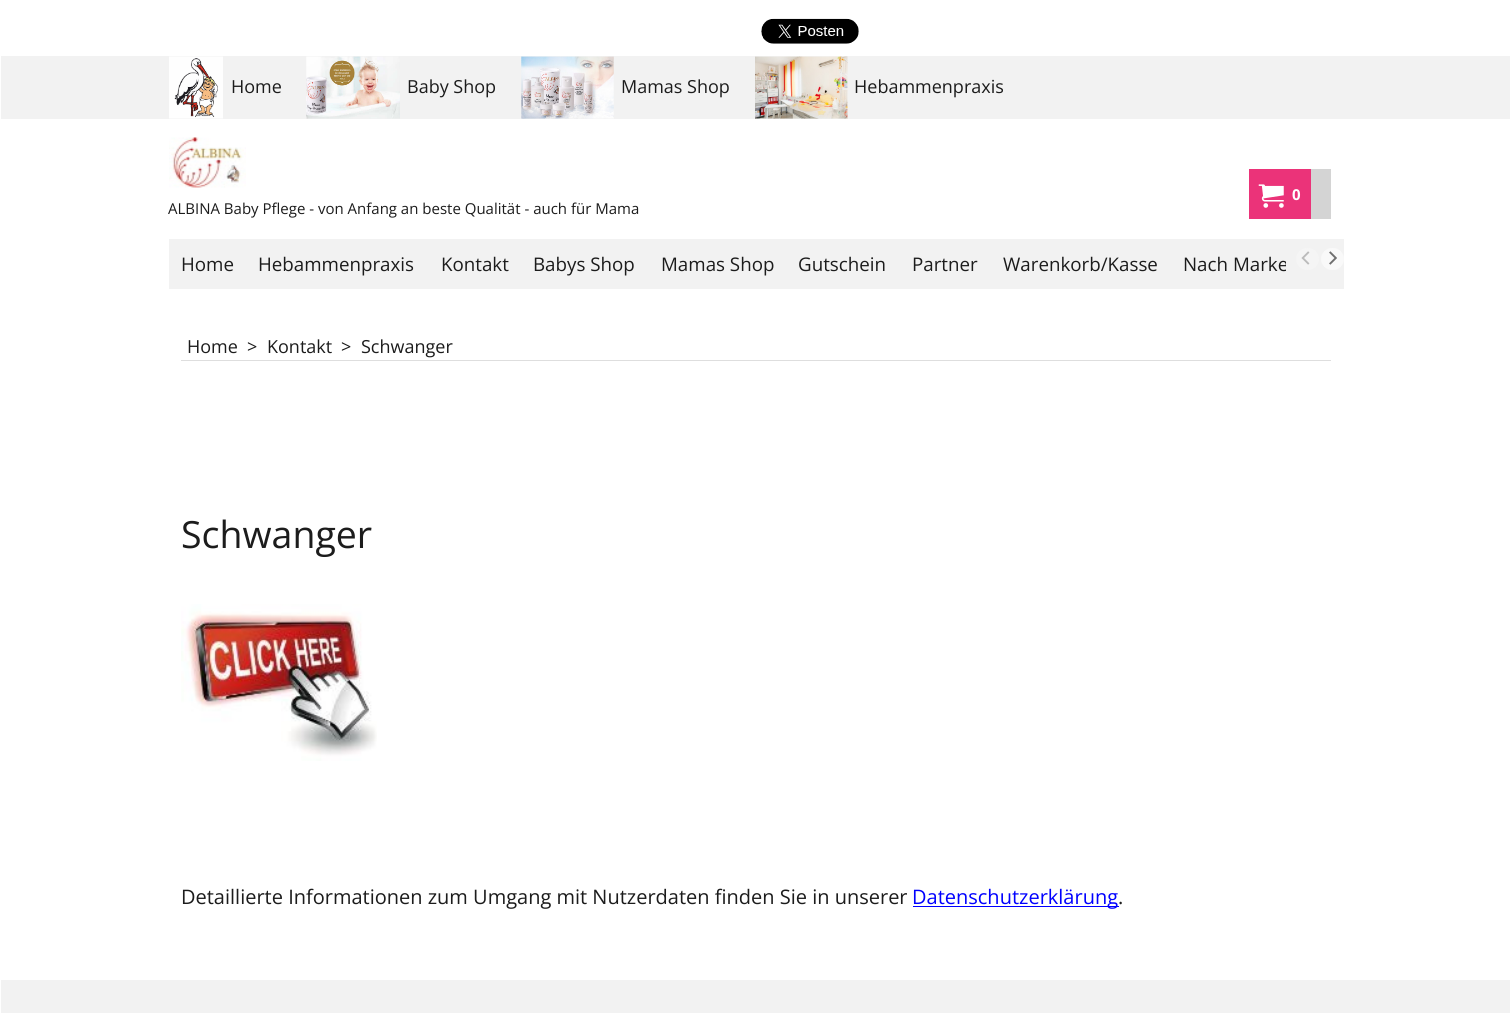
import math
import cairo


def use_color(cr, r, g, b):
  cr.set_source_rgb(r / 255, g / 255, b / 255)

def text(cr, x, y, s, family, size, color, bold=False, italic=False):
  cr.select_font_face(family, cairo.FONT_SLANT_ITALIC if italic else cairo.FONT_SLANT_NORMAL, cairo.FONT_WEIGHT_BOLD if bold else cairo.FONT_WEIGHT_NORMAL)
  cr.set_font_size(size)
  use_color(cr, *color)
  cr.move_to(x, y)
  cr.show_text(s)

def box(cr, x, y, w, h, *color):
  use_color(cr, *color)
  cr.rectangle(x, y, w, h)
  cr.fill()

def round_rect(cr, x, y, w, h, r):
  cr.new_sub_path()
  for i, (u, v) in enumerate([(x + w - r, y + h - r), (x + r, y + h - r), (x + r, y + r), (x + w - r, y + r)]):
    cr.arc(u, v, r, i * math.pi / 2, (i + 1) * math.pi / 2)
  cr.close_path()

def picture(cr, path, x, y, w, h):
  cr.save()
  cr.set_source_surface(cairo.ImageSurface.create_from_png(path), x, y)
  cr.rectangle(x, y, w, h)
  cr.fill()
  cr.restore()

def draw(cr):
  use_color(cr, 255, 255, 255)
  cr.paint()
  picture(cr, "img_01.png", 761, 18, 98, 26)
  box(cr, 1, 56, 1509, 63, 242, 242, 242)
  picture(cr, "img_02.png", 169, 56, 54, 63)
  picture(cr, "img_03.png", 306, 56, 94, 63)
  picture(cr, "img_04.png", 521, 56, 93, 63)
  picture(cr, "img_05.png", 755, 56, 93, 63)
  box(cr, 1249, 169, 62, 50, 235, 51, 121)
  picture(cr, "img_06.png", 1258, 184, 26, 24)
  box(cr, 1311, 169, 20, 50, 212, 212, 212)
  picture(cr, "img_07.png", 169, 137, 77, 51)
  box(cr, 169, 239, 1175, 50, 242, 242, 242)
  use_color(cr, 245, 245, 245)
  round_rect(cr, 1296, 248, 23, 22, 11)
  cr.fill()
  picture(cr, "img_08.png", 1301, 251, 9, 14)
  use_color(cr, 249, 249, 249)
  round_rect(cr, 1321, 248, 23, 22, 11)
  cr.fill()
  picture(cr, "img_09.png", 1329, 251, 8, 14)
  box(cr, 181, 360, 1150, 1, 222, 222, 222)
  picture(cr, "img_10.png", 181, 604, 196, 157)
  box(cr, 913, 906, 206, 1, 0, 0, 255)
  box(cr, 1, 980, 1509, 33, 242, 242, 242)
  text(cr, 231, 93, "Home", "Open Sans", 18, (28, 28, 28))
  text(cr, 407, 93, "Baby Shop", "Open Sans", 18, (28, 28, 28))
  text(cr, 621, 93, "Mamas Shop", "Open Sans", 18, (28, 28, 28))
  text(cr, 854, 93, "Hebammenpraxis", "Open Sans", 18, (28, 28, 28))
  text(cr, 1292, 200, "0", "Open Sans", 15, (255, 255, 255), bold=True)
  text(cr, 168, 214, "ALBINA Baby Pflege - von Anfang an beste Qualität - auch für Mama", "Open Sans", 15, (28, 28, 28))
  text(cr, 181, 271, "Home", "Open Sans", 18.75, (28, 28, 28))
  text(cr, 258, 271, "Hebammenpraxis", "Open Sans", 18.75, (28, 28, 28))
  text(cr, 441, 271, "Kontakt", "Open Sans", 18.75, (28, 28, 28))
  text(cr, 533, 271, "Babys Shop", "Open Sans", 18.75, (28, 28, 28))
  text(cr, 661, 271, "Mamas Shop", "Open Sans", 18.75, (28, 28, 28))
  text(cr, 798, 271, "Gutschein", "Open Sans", 18.75, (28, 28, 28))
  text(cr, 912, 271, "Partner", "Open Sans", 18.75, (28, 28, 28))
  text(cr, 1003, 271, "Warenkorb/Kasse", "Open Sans", 18.75, (28, 28, 28))
  cr.save()
  cr.rectangle(169, 239, 1117, 51)
  cr.clip()
  text(cr, 1183, 271, "Nach Marke", "Open Sans", 18.75, (28, 28, 28))
  cr.restore()
  text(cr, 187, 353, "Home", "Open Sans", 18, (28, 28, 28))
  text(cr, 247, 353, ">", "Open Sans", 18, (28, 28, 28))
  text(cr, 267, 353, "Kontakt", "Open Sans", 18, (28, 28, 28))
  text(cr, 341, 353, ">", "Open Sans", 18, (28, 28, 28))
  text(cr, 361, 353, "Schwanger", "Open Sans", 18, (28, 28, 28))
  text(cr, 181, 548, "Schwanger", "Open Sans", 37.5, (28, 28, 28))
  text(cr, 181, 904, "Detaillierte Informationen zum Umgang mit Nutzerdaten finden Sie in unserer", "Open Sans", 20, (28, 28, 28))
  text(cr, 912, 904, "Datenschutzerklärung", "Open Sans", 20, (0, 0, 255))
  text(cr, 1118, 904, ".", "Open Sans", 20, (28, 28, 28))


surface = cairo.ImageSurface(cairo.FORMAT_RGB24, 1511, 1013)
cr = cairo.Context(surface)
options = cairo.FontOptions()
options.set_hint_metrics(cairo.HINT_METRICS_OFF)
options.set_hint_style(cairo.HINT_STYLE_NONE)
cr.set_font_options(options)
cr.set_miter_limit(4)
draw(cr)
surface.write_to_png("out.png")
